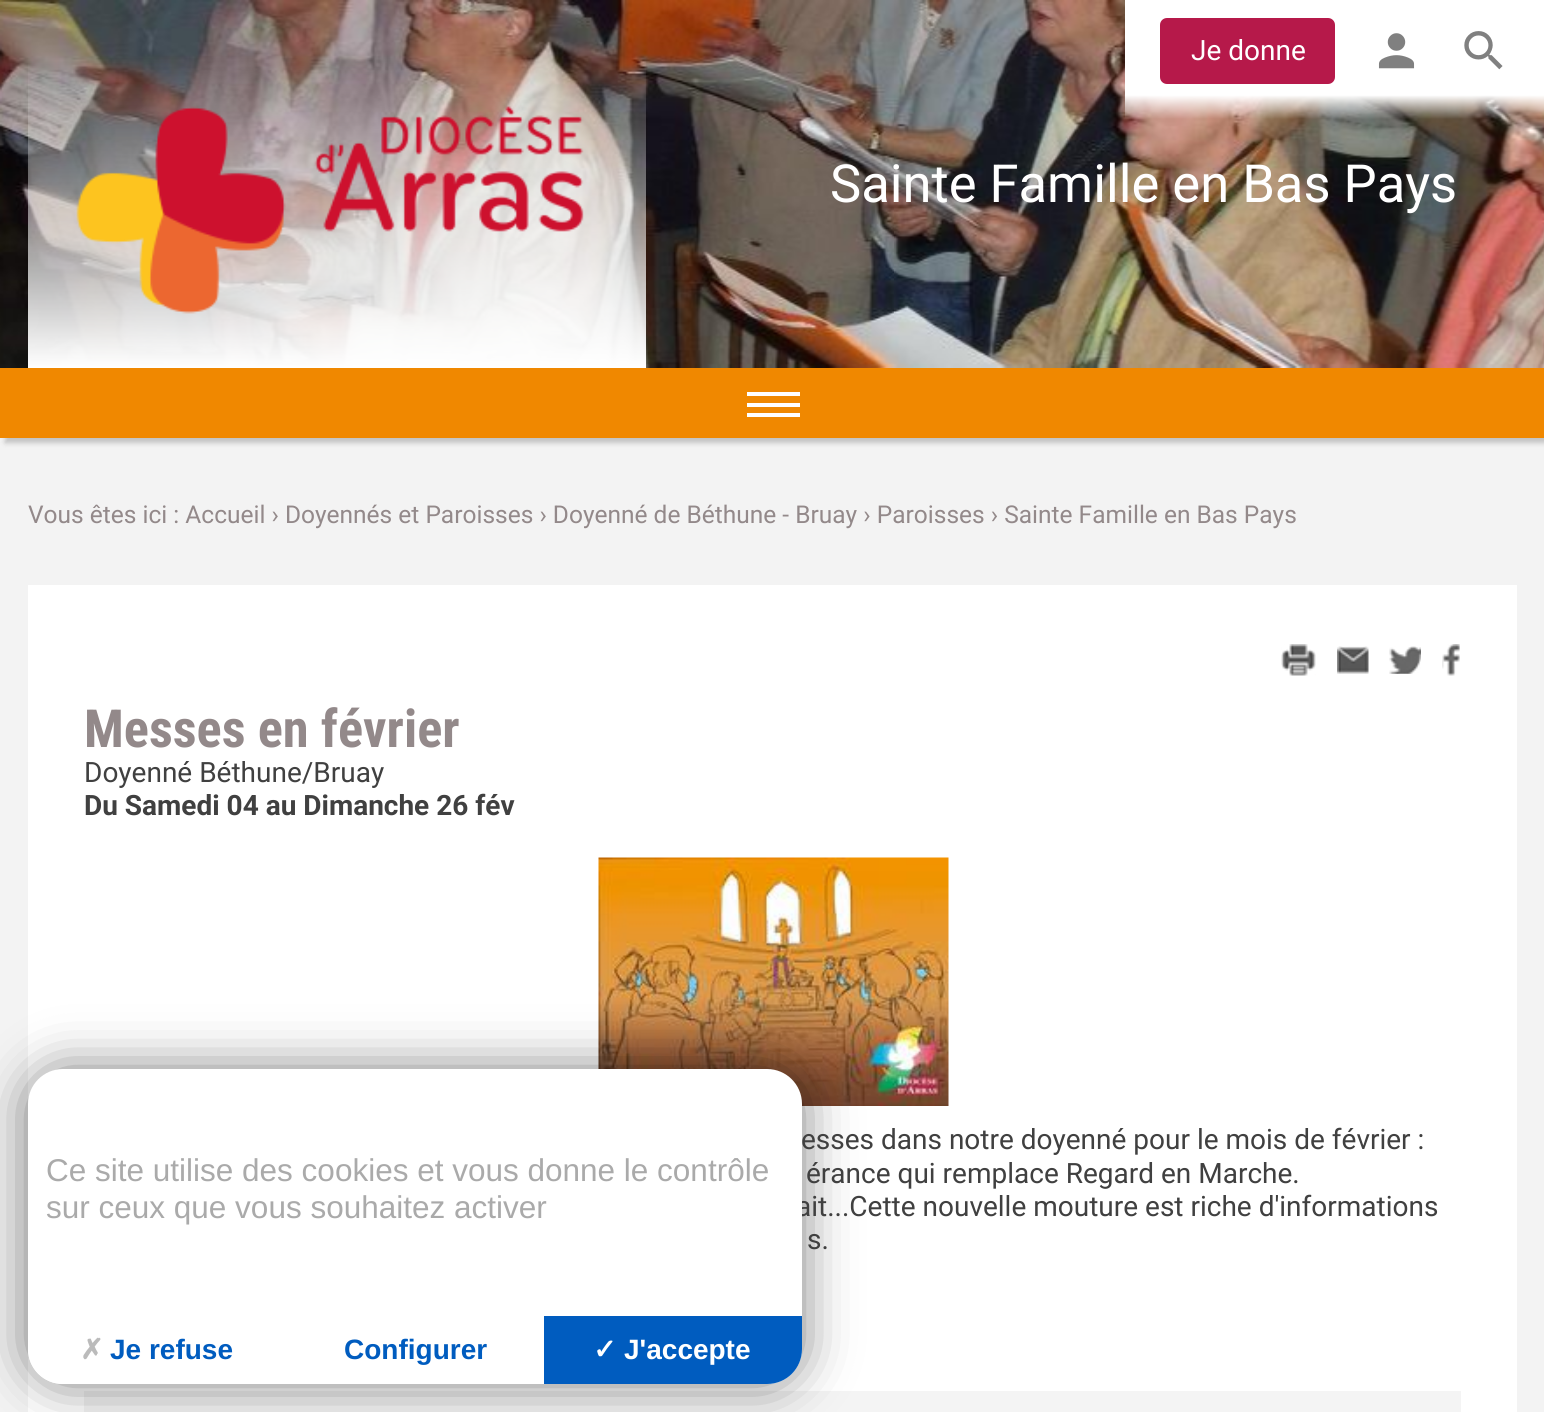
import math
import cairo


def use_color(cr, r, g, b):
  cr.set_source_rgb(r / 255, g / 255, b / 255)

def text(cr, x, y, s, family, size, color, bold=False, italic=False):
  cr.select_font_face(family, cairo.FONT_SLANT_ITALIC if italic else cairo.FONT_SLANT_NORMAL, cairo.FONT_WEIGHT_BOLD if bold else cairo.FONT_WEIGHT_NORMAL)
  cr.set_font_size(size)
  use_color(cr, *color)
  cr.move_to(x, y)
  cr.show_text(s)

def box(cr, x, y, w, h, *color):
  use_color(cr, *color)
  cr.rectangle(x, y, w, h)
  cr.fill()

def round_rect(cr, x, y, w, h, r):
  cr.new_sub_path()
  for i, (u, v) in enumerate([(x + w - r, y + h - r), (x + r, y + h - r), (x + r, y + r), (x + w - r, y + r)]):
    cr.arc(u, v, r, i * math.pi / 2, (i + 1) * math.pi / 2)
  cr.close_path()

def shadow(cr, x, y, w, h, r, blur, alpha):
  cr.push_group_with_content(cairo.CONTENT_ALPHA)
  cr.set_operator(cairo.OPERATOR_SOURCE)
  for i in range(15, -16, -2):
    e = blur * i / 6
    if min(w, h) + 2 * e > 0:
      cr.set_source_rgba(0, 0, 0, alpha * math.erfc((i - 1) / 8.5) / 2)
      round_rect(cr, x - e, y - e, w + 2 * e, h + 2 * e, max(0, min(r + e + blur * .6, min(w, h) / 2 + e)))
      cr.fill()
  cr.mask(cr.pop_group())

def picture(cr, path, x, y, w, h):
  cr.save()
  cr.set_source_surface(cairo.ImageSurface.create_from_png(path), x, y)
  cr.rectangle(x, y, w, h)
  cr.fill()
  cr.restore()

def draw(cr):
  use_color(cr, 243, 243, 243)
  cr.paint()
  picture(cr, "img_01.png", 0, 0, 1544, 368)
  use_color(cr, 182, 25, 74)
  round_rect(cr, 1160, 18, 175, 66, 7)
  cr.fill()
  picture(cr, "img_02.png", 1378, 33, 37, 36)
  picture(cr, "img_03.png", 1464, 31, 39, 39)
  picture(cr, "img_04.png", 76, 106, 508, 208)
  box(cr, 0, 368, 1544, 70, 240, 136, 0)
  cr.save()
  cr.set_fill_rule(cairo.FILL_RULE_EVEN_ODD)
  cr.new_path()
  cr.move_to(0, 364)
  cr.line_to(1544, 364)
  cr.line_to(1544, 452)
  cr.line_to(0, 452)
  cr.close_path()
  cr.move_to(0, 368)
  cr.line_to(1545, 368)
  cr.line_to(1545, 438)
  cr.line_to(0, 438)
  cr.close_path()
  cr.clip()
  use_color(cr, 0, 0, 0)
  shadow(cr, 5, 373, 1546, 70, 0, 2.5, 0.2)
  cr.restore()
  box(cr, 747, 403, 53, 4, 255, 255, 255)
  box(cr, 747, 392, 53, 4, 255, 255, 255)
  box(cr, 747, 413, 53, 4, 255, 255, 255)
  box(cr, 28, 585, 1489, 827, 255, 255, 255)
  picture(cr, "img_05.png", 1281, 644, 35, 32)
  picture(cr, "img_06.png", 1337, 646, 32, 28)
  picture(cr, "img_07.png", 1389, 646, 32, 28)
  picture(cr, "img_08.png", 1442, 644, 18, 32)
  picture(cr, "img_09.png", 598, 857, 351, 249)
  box(cr, 84, 1391, 1377, 21, 244, 244, 244)
  use_color(cr, 0, 0, 0)
  shadow(cr, 28, 1069, 774, 315, 35, 26, 0.5)
  text(cr, 1191, 60, "Je donne", "Roboto", 28, (255, 255, 255))
  text(cr, 830, 202, "Sainte Famille en Bas Pays", "Roboto", 52.5, (255, 255, 255))
  text(cr, 28, 523, "Vous êtes ici : Accueil › Doyennés et Paroisses › Doyenné de Béthune - Bruay › Paroisses › Sainte Famille en Bas Pays", "Roboto", 24.5, (147, 137, 138))
  text(cr, 84, 747, "Messes en février", "Roboto Condensed", 52.5, (147, 137, 138), bold=True)
  text(cr, 84, 782, "Doyenné Béthune/Bruay", "Roboto", 28, (64, 64, 64))
  text(cr, 84, 815, "Du Samedi 04 au Dimanche 26 fév", "Roboto", 28, (64, 64, 64), bold=True)
  text(cr, 801, 1149, "esses dans notre doyenné pour le mois de février :", "Roboto", 28, (64, 64, 64))
  text(cr, 806, 1183, "érance qui remplace Regard en Marche.", "Roboto", 28, (64, 64, 64))
  text(cr, 796, 1216, "ait...Cette nouvelle mouture est riche d'informations", "Roboto", 28, (64, 64, 64))
  text(cr, 807, 1249, "s.", "Roboto", 28, (64, 64, 64))
  use_color(cr, 255, 255, 255)
  round_rect(cr, 28, 1069, 774, 315, 35)
  cr.fill()
  text(cr, 46, 1181, "Ce site utilise des cookies et vous donne le contrôle", "Liberation Sans", 31.5, (170, 170, 170))
  text(cr, 46, 1218, "sur ceux que vous souhaitez activer", "Liberation Sans", 31.5, (170, 170, 170))
  use_color(cr, 255, 255, 255)
  cr.new_path()
  cr.move_to(28, 1316)
  cr.line_to(285, 1316)
  cr.line_to(285, 1384)
  cr.line_to(63, 1384)
  cr.curve_to(43.5, 1384, 28, 1368.5, 28, 1349)
  cr.close_path()
  cr.fill()
  text(cr, 80, 1359, "✗", "DejaVu Sans", 28, (187, 187, 187), bold=True)
  text(cr, 110, 1359, "Je refuse", "Liberation Sans", 28, (0, 92, 191), bold=True)
  text(cr, 344, 1359, "Configurer", "Liberation Sans", 28, (0, 92, 191), bold=True)
  cr.new_path()
  cr.move_to(543, 1316)
  cr.line_to(802, 1316)
  cr.line_to(802, 1349)
  cr.curve_to(802, 1368.5, 786.5, 1384, 767, 1384)
  cr.line_to(543, 1384)
  cr.close_path()
  cr.fill()
  box(cr, 543, 1316, 1, 68, 255, 255, 255)
  text(cr, 593, 1359, "✓", "DejaVu Sans", 28, (255, 255, 255), bold=True)
  text(cr, 624, 1359, "J'accepte", "Liberation Sans", 28, (255, 255, 255), bold=True)


surface = cairo.ImageSurface(cairo.FORMAT_RGB24, 1544, 1412)
cr = cairo.Context(surface)
options = cairo.FontOptions()
options.set_hint_metrics(cairo.HINT_METRICS_OFF)
options.set_hint_style(cairo.HINT_STYLE_NONE)
cr.set_font_options(options)
cr.set_miter_limit(4)
draw(cr)
surface.write_to_png("out.png")
